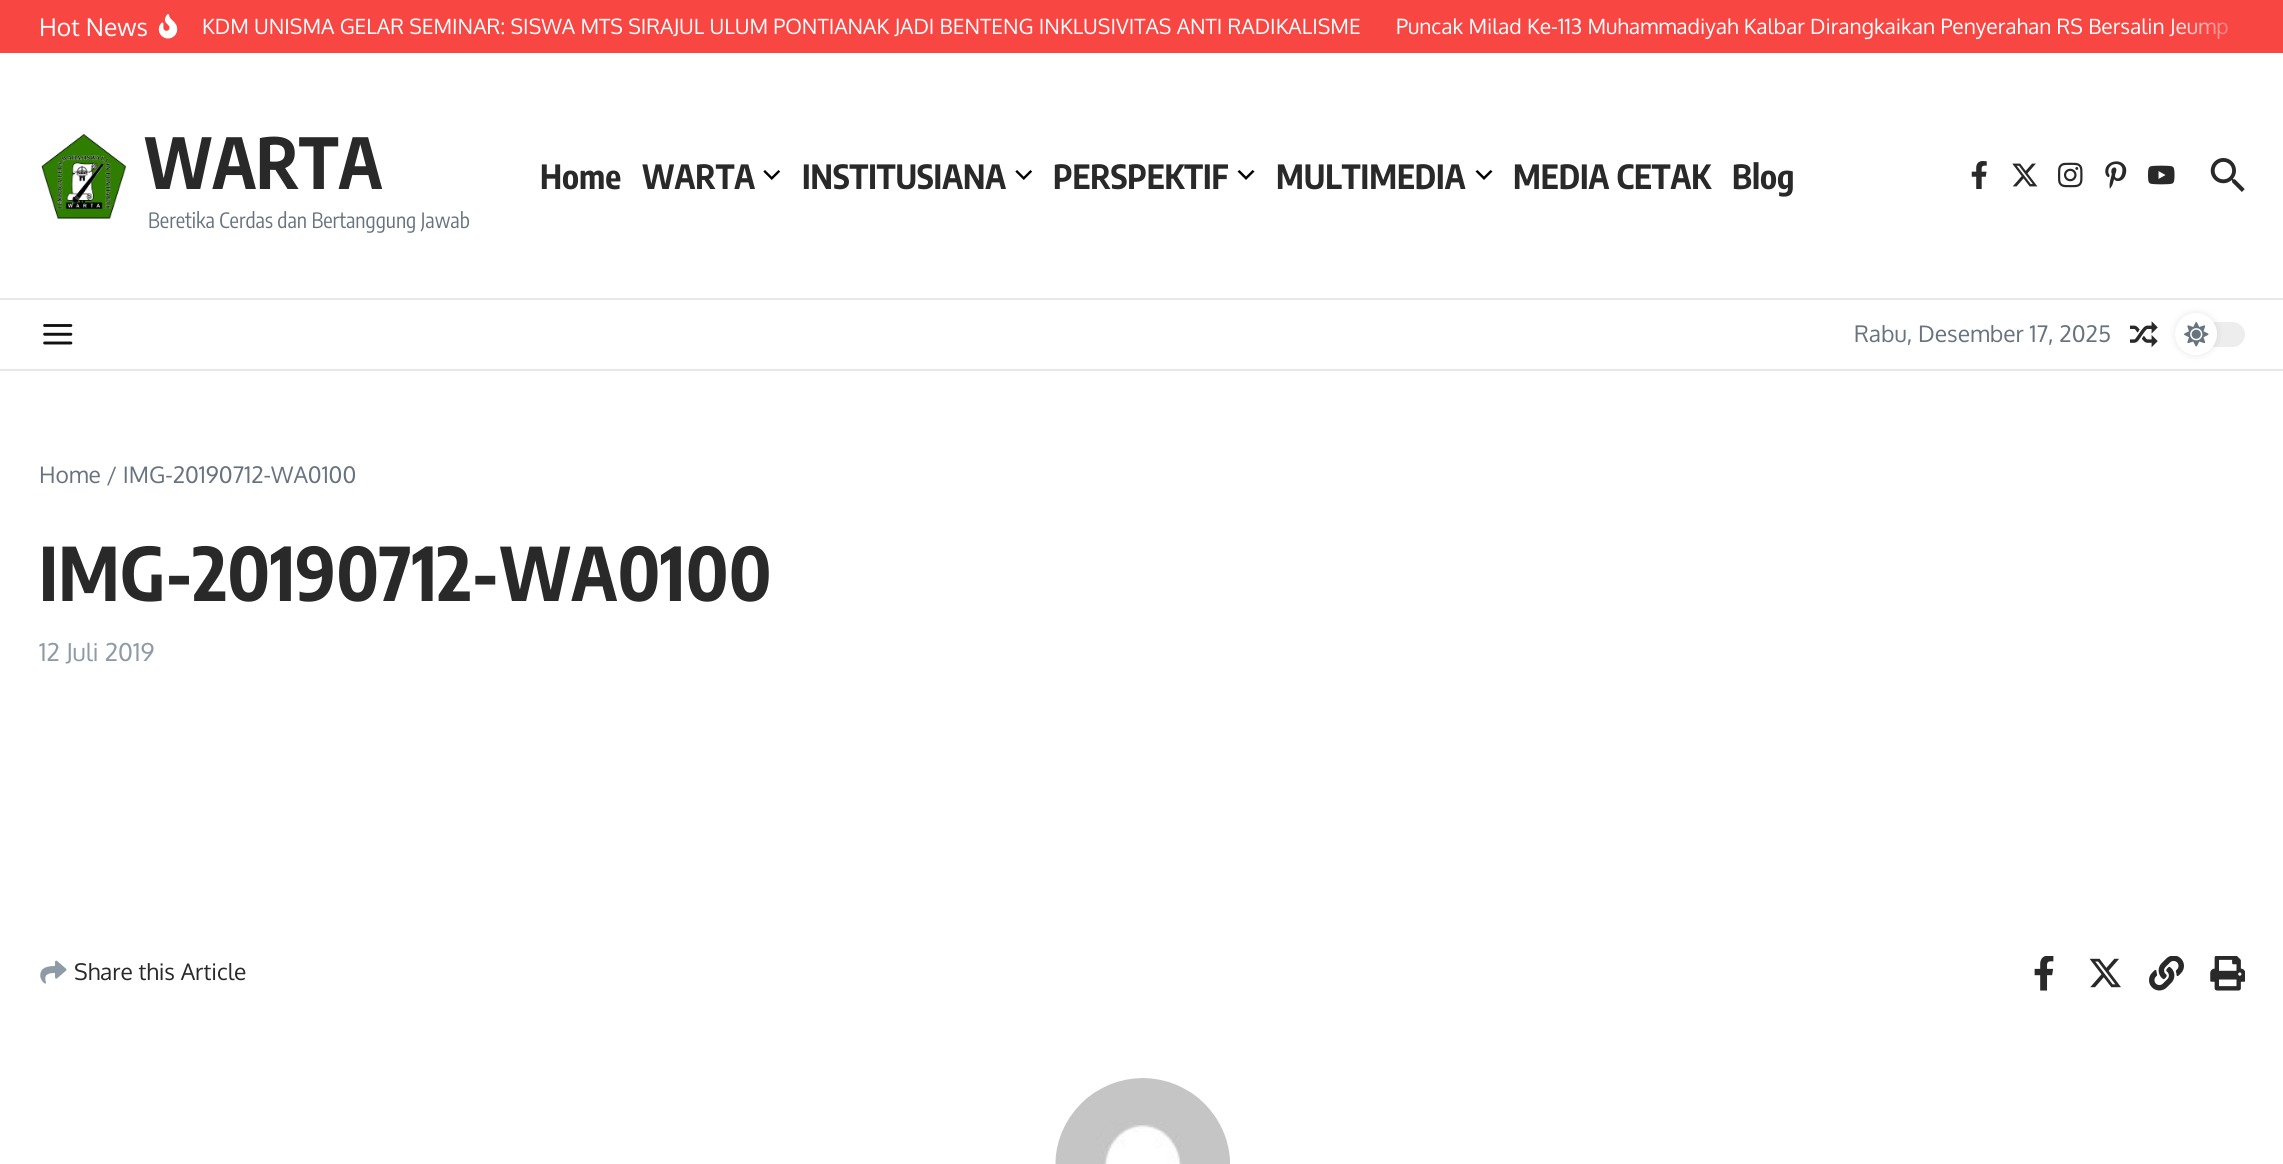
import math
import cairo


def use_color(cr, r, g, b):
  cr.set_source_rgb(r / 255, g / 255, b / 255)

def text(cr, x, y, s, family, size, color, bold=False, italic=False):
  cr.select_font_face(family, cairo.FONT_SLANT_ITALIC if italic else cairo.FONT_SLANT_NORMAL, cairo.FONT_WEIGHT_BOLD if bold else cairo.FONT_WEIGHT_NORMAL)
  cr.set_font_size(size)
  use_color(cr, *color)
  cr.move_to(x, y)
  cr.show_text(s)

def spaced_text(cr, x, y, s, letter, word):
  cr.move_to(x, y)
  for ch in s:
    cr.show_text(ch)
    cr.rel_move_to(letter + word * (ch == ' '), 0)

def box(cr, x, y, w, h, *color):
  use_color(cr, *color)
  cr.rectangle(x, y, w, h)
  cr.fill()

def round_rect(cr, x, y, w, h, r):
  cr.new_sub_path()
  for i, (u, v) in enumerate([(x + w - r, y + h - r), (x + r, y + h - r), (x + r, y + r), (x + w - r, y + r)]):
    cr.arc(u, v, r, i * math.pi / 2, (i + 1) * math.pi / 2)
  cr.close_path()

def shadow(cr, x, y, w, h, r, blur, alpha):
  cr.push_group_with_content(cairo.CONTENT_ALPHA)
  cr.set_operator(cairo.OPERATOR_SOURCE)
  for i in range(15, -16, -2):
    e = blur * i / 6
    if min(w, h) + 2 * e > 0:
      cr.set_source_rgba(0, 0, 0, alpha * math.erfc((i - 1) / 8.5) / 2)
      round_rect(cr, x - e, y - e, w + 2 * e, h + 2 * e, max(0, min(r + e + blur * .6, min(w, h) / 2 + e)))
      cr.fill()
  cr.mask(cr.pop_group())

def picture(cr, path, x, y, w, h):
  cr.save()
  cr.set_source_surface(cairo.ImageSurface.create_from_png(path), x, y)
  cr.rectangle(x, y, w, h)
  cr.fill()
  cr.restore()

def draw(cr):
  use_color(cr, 255, 255, 255)
  cr.paint()
  box(cr, 0, 0, 2283, 53, 248, 70, 67)
  picture(cr, "img_01.png", 158, 14, 20, 25)
  box(cr, 0, 298, 2283, 2, 232, 232, 232)
  picture(cr, "img_02.png", 41, 133, 86, 86)
  picture(cr, "img_03.png", 763, 170, 18, 10)
  picture(cr, "img_03.png", 1015, 170, 18, 10)
  use_color(cr, 0, 0, 0)
  cr.new_path()
  cr.move_to(1237.5, 171.5)
  cr.line_to(1246, 180)
  cr.line_to(1254.5, 171.5)
  cr.line_to(1252.5, 170)
  cr.line_to(1246, 176.5)
  cr.line_to(1239.5, 170)
  cr.close_path()
  cr.fill()
  cr.new_path()
  cr.move_to(1475.5, 171.5)
  cr.line_to(1484, 180)
  cr.line_to(1492.5, 171.5)
  cr.line_to(1490.5, 170)
  cr.line_to(1484, 176.5)
  cr.line_to(1477.5, 170)
  cr.close_path()
  cr.fill()
  picture(cr, "img_04.png", 1971, 161, 16, 28)
  picture(cr, "img_05.png", 2012, 163, 26, 24)
  picture(cr, "img_06.png", 2058, 162, 25, 26)
  picture(cr, "img_07.png", 2105, 161, 22, 28)
  picture(cr, "img_08.png", 2148, 165, 27, 20)
  picture(cr, "img_09.png", 2210, 158, 35, 34)
  box(cr, 0, 369, 2283, 2, 232, 232, 232)
  picture(cr, "img_10.png", 43, 324, 30, 21)
  picture(cr, "img_11.png", 2130, 321, 28, 27)
  use_color(cr, 237, 237, 237)
  round_rect(cr, 2175, 322, 70, 25, 12.5)
  cr.fill()
  use_color(cr, 0, 0, 0)
  shadow(cr, 2175, 313, 42, 42, 21, 3.5, 0.1)
  use_color(cr, 255, 255, 255)
  cr.arc(2196, 334, 21, 0, 2 * math.pi)
  cr.fill()
  picture(cr, "img_12.png", 2184, 322, 25, 25)
  picture(cr, "img_13.png", 40, 960, 27, 24)
  picture(cr, "img_14.png", 2034, 956, 20, 35)
  picture(cr, "img_15.png", 2089, 958, 32, 30)
  picture(cr, "img_16.png", 2149, 956, 35, 35)
  picture(cr, "img_17.png", 2210, 956, 35, 35)
  picture(cr, "img_18.png", 1055, 1078, 175, 86)
  text(cr, 39, 36, "Hot News", "Oxygen", 24.5, (255, 255, 255))
  text(cr, 202, 34, "KDM UNISMA GELAR SEMINAR: SISWA MTS SIRAJUL ULUM PONTIANAK JADI BENTENG INKLUSIVITAS ANTI RADIKALISME", "Oxygen", 21, (255, 255, 255))
  text(cr, 1396, 34, "Puncak Milad Ke-113 Muhammadiyah Kalbar Dirangkaikan Penyerahan RS Bersalin Jeump", "Oxygen", 21, (255, 255, 255))
  gradient = cairo.LinearGradient(2167, 27, 2254, 27)
  gradient.add_color_stop_rgba(0, 0.973, 0.275, 0.263, 0)
  gradient.add_color_stop_rgba(1, 0.973, 0.275, 0.263, 1)
  cr.set_source(gradient)
  cr.rectangle(2170, 18, 58, 21)
  cr.fill()
  text(cr, 144, 189, "WARTA", "Encode Sans Condensed", 70, (41, 41, 41), bold=True)
  text(cr, 148, 228, "Beretika Cerdas dan Bertanggung Jawab", "Encode Sans Condensed", 21, (103, 115, 126))
  text(cr, 540, 189, "Home", "Encode Sans Condensed", 33.25, (41, 41, 41), bold=True)
  text(cr, 642, 189, "WARTA", "Encode Sans Condensed", 33.25, (41, 41, 41), bold=True)
  text(cr, 802, 189, "INSTITUSIANA", "Encode Sans Condensed", 33.25, (41, 41, 41), bold=True)
  text(cr, 1053, 189, "PERSPEKTIF", "Encode Sans Condensed", 33.25, (41, 41, 41), bold=True)
  text(cr, 1276, 189, "MULTIMEDIA", "Encode Sans Condensed", 33.25, (41, 41, 41), bold=True)
  text(cr, 1513, 189, "MEDIA CETAK", "Encode Sans Condensed", 33.25, (41, 41, 41), bold=True)
  text(cr, 1732, 189, "Blog", "Encode Sans Condensed", 33.25, (41, 41, 41), bold=True)
  text(cr, 1854, 342, "Rabu, Desember 17, 2025", "Oxygen", 22.75, (103, 115, 126))
  text(cr, 39, 483, "Home / IMG-20190712-WA0100", "Oxygen", 22.75, (103, 115, 126))
  cr.select_font_face("Encode Sans Condensed", cairo.FONT_SLANT_NORMAL, cairo.FONT_WEIGHT_BOLD)
  cr.set_font_size(73.5)
  use_color(cr, 41, 41, 41)
  spaced_text(cr, 39, 601, "IMG-20190712-WA0100", 0.3, 0)
  text(cr, 39, 661, "12 Juli 2019", "Oxygen", 24.5, (142, 155, 167))
  text(cr, 74, 980, "Share this Article", "Oxygen", 22.75, (41, 41, 41))


surface = cairo.ImageSurface(cairo.FORMAT_RGB24, 2283, 1164)
cr = cairo.Context(surface)
options = cairo.FontOptions()
options.set_hint_metrics(cairo.HINT_METRICS_OFF)
options.set_hint_style(cairo.HINT_STYLE_NONE)
cr.set_font_options(options)
cr.set_miter_limit(4)
draw(cr)
surface.write_to_png("out.png")
